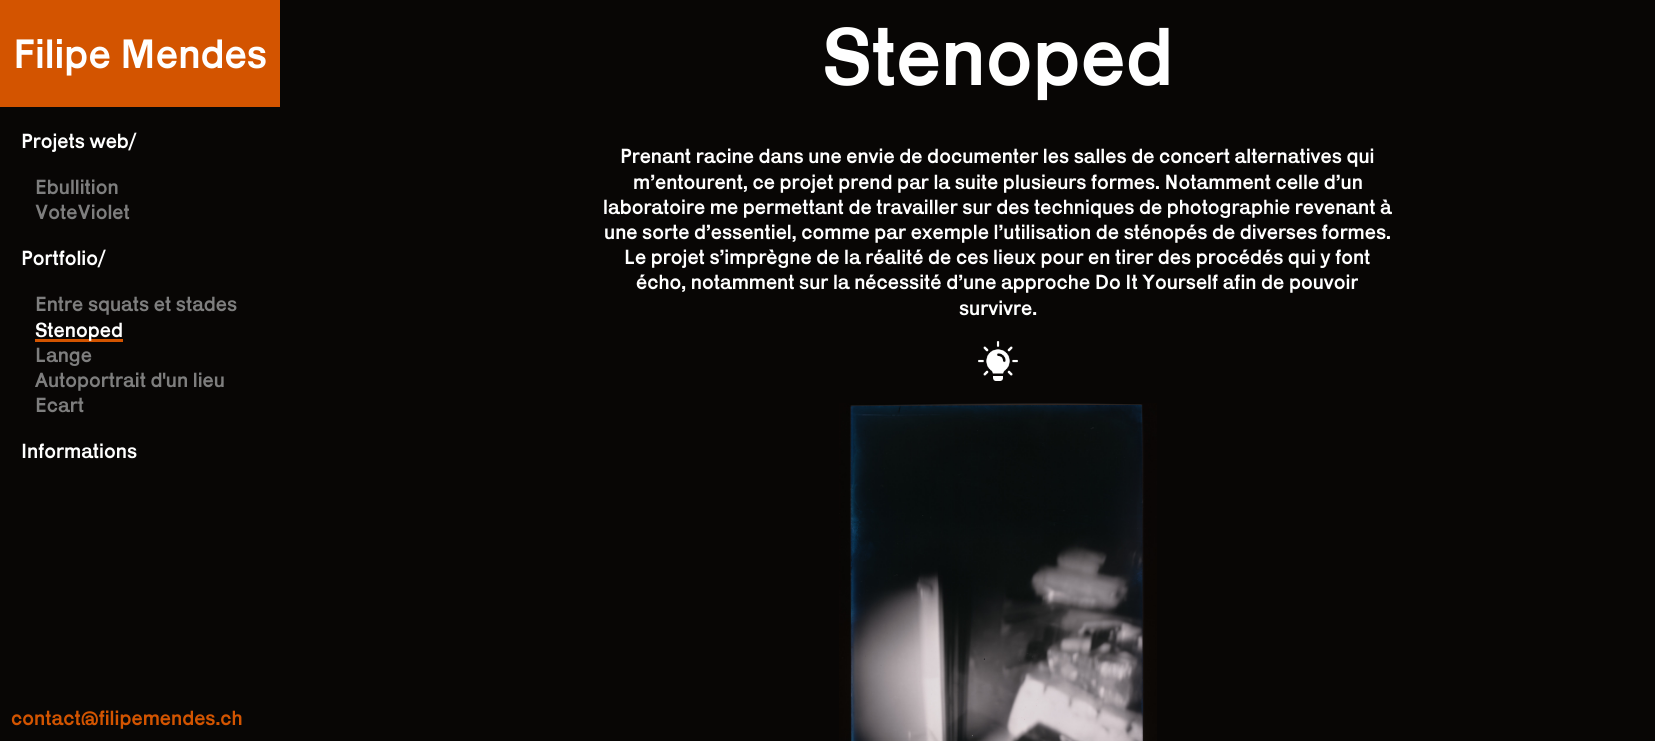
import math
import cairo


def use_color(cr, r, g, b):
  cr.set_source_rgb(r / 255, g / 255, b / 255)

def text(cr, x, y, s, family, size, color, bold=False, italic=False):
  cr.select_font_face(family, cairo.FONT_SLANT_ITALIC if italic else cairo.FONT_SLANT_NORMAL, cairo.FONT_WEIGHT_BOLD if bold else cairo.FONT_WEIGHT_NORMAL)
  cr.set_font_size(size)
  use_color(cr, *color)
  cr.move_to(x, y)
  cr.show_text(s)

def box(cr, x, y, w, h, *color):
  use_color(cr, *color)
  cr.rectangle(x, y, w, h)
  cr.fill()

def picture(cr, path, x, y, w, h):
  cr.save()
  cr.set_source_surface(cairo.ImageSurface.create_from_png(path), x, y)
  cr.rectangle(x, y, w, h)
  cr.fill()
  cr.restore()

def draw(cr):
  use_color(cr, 8, 6, 5)
  cr.paint()
  box(cr, 0, 0, 280, 107, 211, 84, 0)
  box(cr, 35, 339, 88, 3, 211, 84, 0)
  picture(cr, "img_01.png", 978, 341, 40, 40)
  picture(cr, "img_02.png", 839, 403, 318, 338)
  text(cr, 13, 68, "Filipe Mendes", "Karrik", 42, (255, 255, 255))
  text(cr, 21, 148, "Projets web/", "Karrik", 21, (255, 255, 255))
  text(cr, 35, 194, "Ebullition", "Karrik", 21, (126, 126, 126))
  text(cr, 35, 219, "VoteViolet", "Karrik", 21, (126, 126, 126))
  text(cr, 21, 265, "Portfolio/", "Karrik", 21, (255, 255, 255))
  text(cr, 35, 311, "Entre squats et stades", "Karrik", 21, (126, 126, 126))
  text(cr, 35, 337, "Stenoped", "Karrik", 21, (255, 255, 255))
  text(cr, 35, 362, "Lange", "Karrik", 21, (126, 126, 126))
  text(cr, 35, 387, "Autoportrait d'un lieu", "Karrik", 21, (126, 126, 126))
  text(cr, 35, 412, "Ecart", "Karrik", 21, (126, 126, 126))
  text(cr, 21, 458, "Informations", "Karrik", 21, (255, 255, 255))
  text(cr, 11, 725, "contact@filipemendes.ch", "Karrik", 21, (211, 84, 0))
  text(cr, 822, 85, "Stenoped", "Karrik", 84, (255, 255, 255))
  text(cr, 620, 163, "Prenant racine dans une envie de documenter les salles de concert alternatives qui", "Karrik", 21, (255, 255, 255))
  text(cr, 633, 189, "m’entourent, ce projet prend par la suite plusieurs formes. Notamment celle d’un", "Karrik", 21, (255, 255, 255))
  text(cr, 603, 214, "laboratoire me permettant de travailler sur des techniques de photographie revenant à", "Karrik", 21, (255, 255, 255))
  text(cr, 604, 239, "une sorte d’essentiel, comme par exemple l’utilisation de sténopés de diverses formes.", "Karrik", 21, (255, 255, 255))
  text(cr, 624, 264, "Le projet s’imprègne de la réalité de ces lieux pour en tirer des procédés qui y font", "Karrik", 21, (255, 255, 255))
  text(cr, 636, 289, "écho, notamment sur la nécessité d’une approche Do It Yourself afin de pouvoir", "Karrik", 21, (255, 255, 255))
  text(cr, 959, 315, "survivre.", "Karrik", 21, (255, 255, 255))


surface = cairo.ImageSurface(cairo.FORMAT_RGB24, 1655, 741)
cr = cairo.Context(surface)
options = cairo.FontOptions()
options.set_hint_metrics(cairo.HINT_METRICS_OFF)
options.set_hint_style(cairo.HINT_STYLE_NONE)
cr.set_font_options(options)
cr.set_miter_limit(4)
draw(cr)
surface.write_to_png("out.png")
